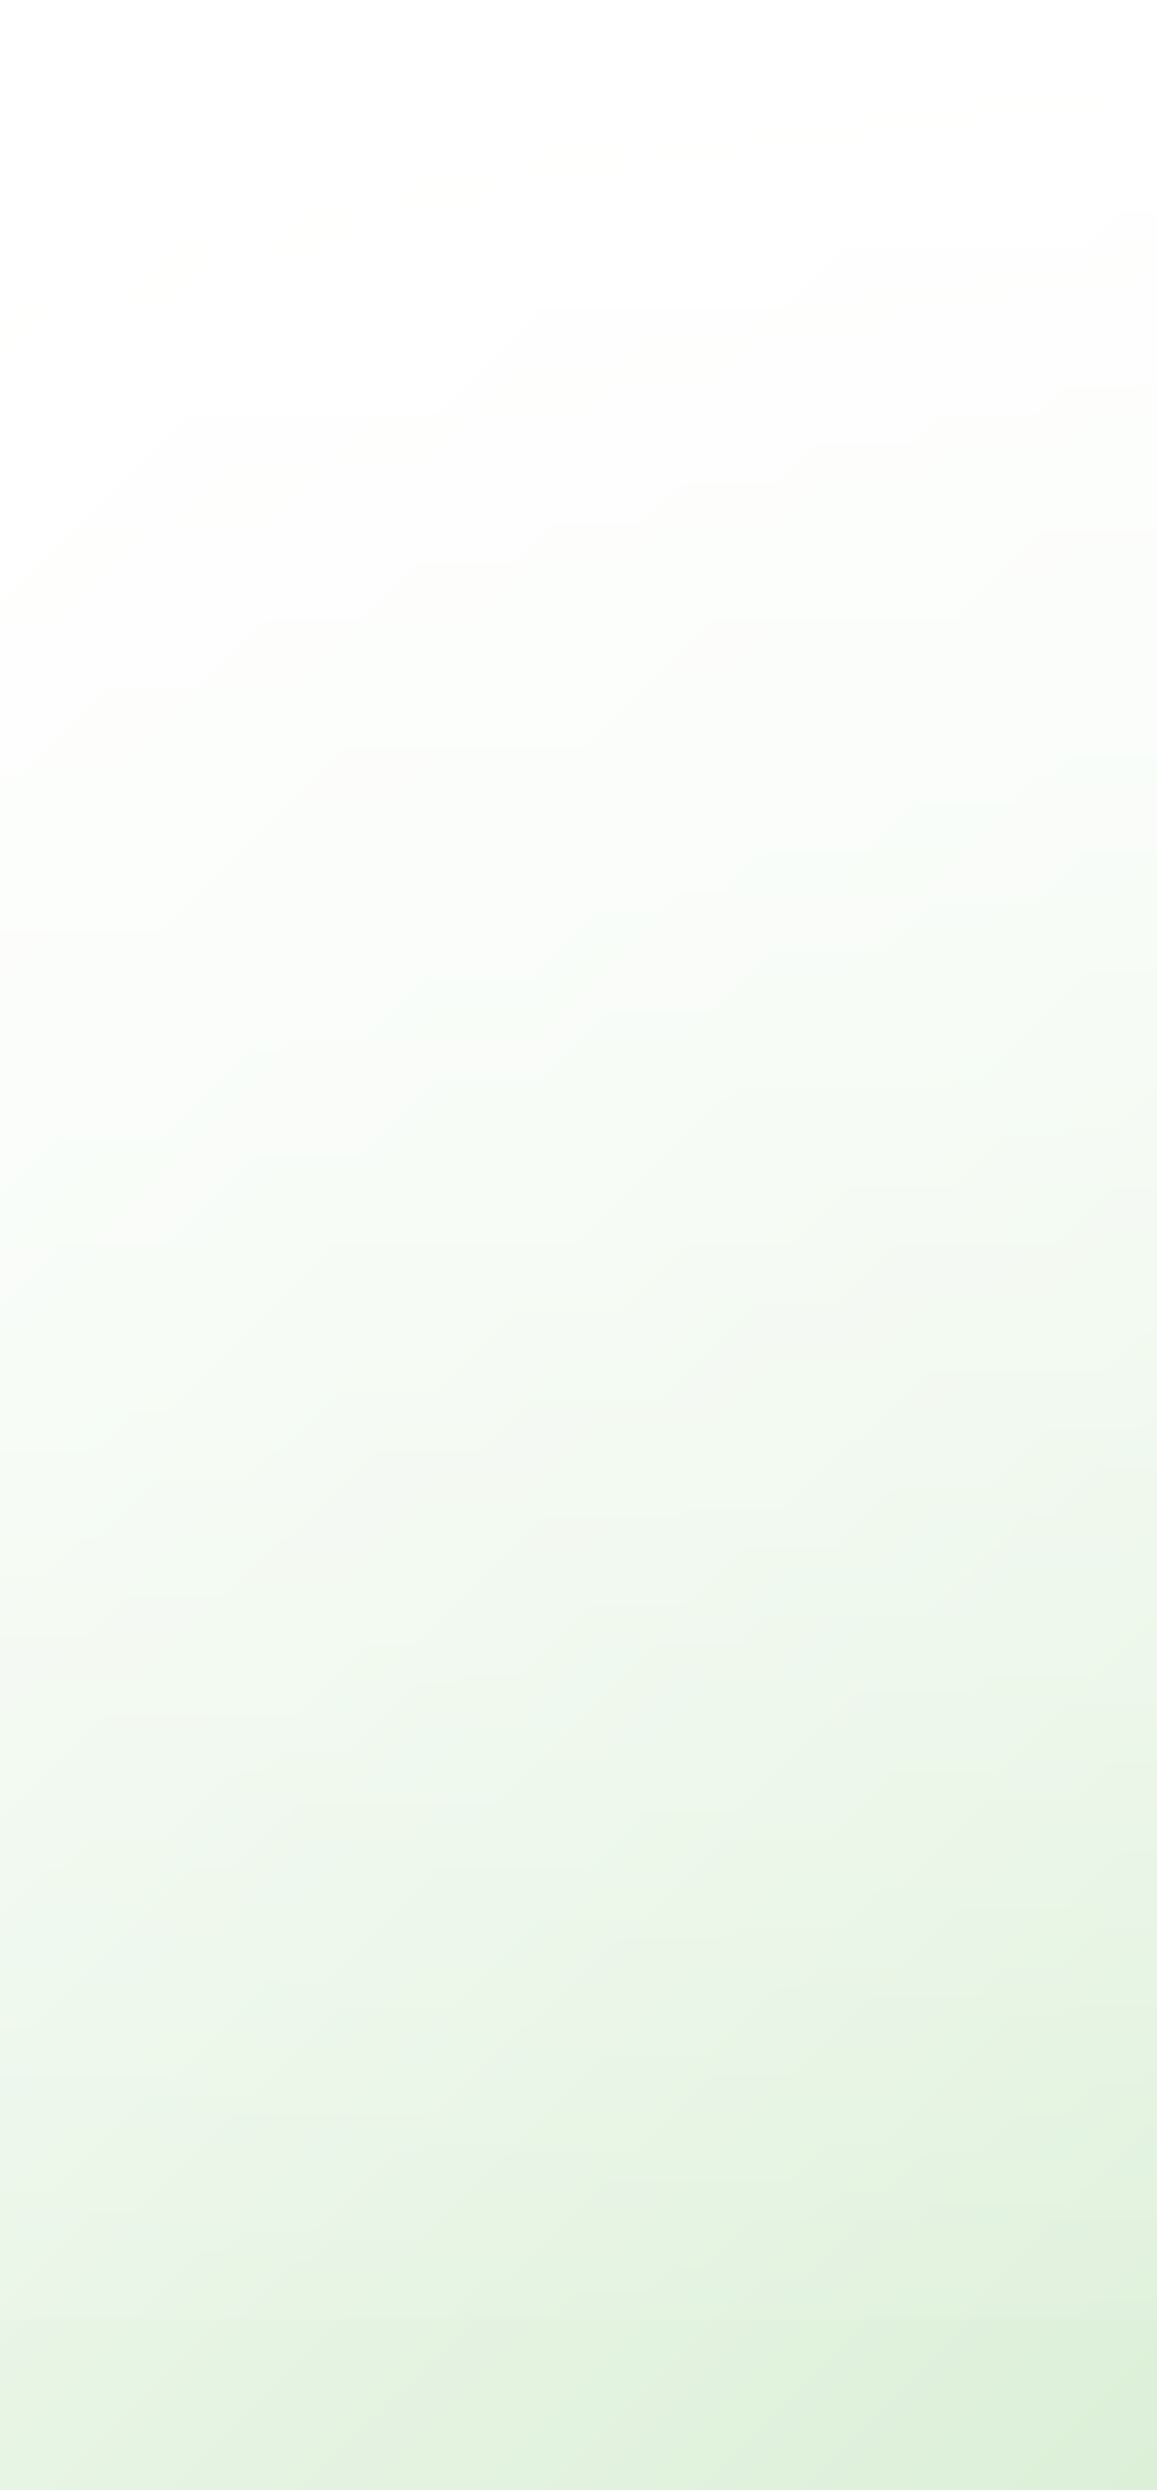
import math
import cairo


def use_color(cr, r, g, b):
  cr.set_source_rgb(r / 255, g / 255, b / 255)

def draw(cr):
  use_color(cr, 255, 255, 255)
  cr.paint()
  gradient = cairo.LinearGradient(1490, 2157, -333, 333)
  gradient.add_color_stop_rgba(0, 0.863, 0.941, 0.847, 1)
  gradient.add_color_stop_rgba(1, 1, 1, 1, 1)
  cr.set_source(gradient)
  cr.rectangle(0, 14, 1157, 2476)
  cr.fill()
  gradient = cairo.LinearGradient(578, 0, 579, 2490)
  gradient.add_color_stop_rgba(0, 1, 1, 1, 1)
  gradient.add_color_stop_rgba(1, 1, 1, 1, 0)
  cr.set_source(gradient)
  cr.rectangle(0, 14, 1157, 2305)
  cr.fill()


surface = cairo.ImageSurface(cairo.FORMAT_RGB24, 1157, 2490)
cr = cairo.Context(surface)
options = cairo.FontOptions()
options.set_hint_metrics(cairo.HINT_METRICS_OFF)
options.set_hint_style(cairo.HINT_STYLE_NONE)
cr.set_font_options(options)
cr.set_miter_limit(4)
draw(cr)
surface.write_to_png("out.png")
